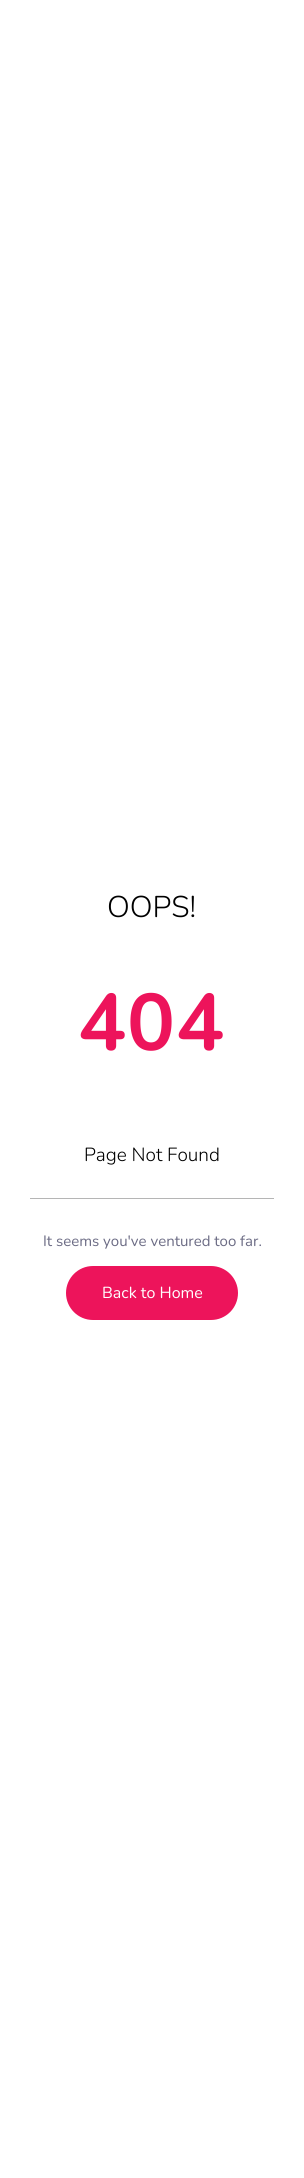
import math
import cairo


def use_color(cr, r, g, b):
  cr.set_source_rgb(r / 255, g / 255, b / 255)

def text(cr, x, y, s, family, size, color, bold=False, italic=False):
  cr.select_font_face(family, cairo.FONT_SLANT_ITALIC if italic else cairo.FONT_SLANT_NORMAL, cairo.FONT_WEIGHT_BOLD if bold else cairo.FONT_WEIGHT_NORMAL)
  cr.set_font_size(size)
  use_color(cr, *color)
  cr.move_to(x, y)
  cr.show_text(s)

def spaced_text(cr, x, y, s, letter, word):
  cr.move_to(x, y)
  for ch in s:
    cr.show_text(ch)
    cr.rel_move_to(letter + word * (ch == ' '), 0)

def box(cr, x, y, w, h, *color):
  use_color(cr, *color)
  cr.rectangle(x, y, w, h)
  cr.fill()

def round_rect(cr, x, y, w, h, r):
  cr.new_sub_path()
  for i, (u, v) in enumerate([(x + w - r, y + h - r), (x + r, y + h - r), (x + r, y + r), (x + w - r, y + r)]):
    cr.arc(u, v, r, i * math.pi / 2, (i + 1) * math.pi / 2)
  cr.close_path()

def draw(cr):
  use_color(cr, 255, 255, 255)
  cr.paint()
  box(cr, 30, 1198, 244, 1, 181, 181, 181)
  use_color(cr, 237, 20, 91)
  round_rect(cr, 66, 1266, 172, 54, 27)
  cr.fill()
  text(cr, 107, 917, "OOPS!", "Nunito Light", 30, (0, 0, 0))
  cr.select_font_face("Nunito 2 ExtraLight")
  cr.set_font_size(80)
  use_color(cr, 237, 20, 91)
  spaced_text(cr, 78, 1050, "404", 1, 0)
  text(cr, 84, 1161, "Page Not Found", "Nunito Light", 19, (0, 0, 0))
  text(cr, 43, 1246, "It seems you've ventured too far.", "Nunito ExtraLight", 15, (107, 107, 132))
  text(cr, 102, 1298, "Back to Home", "Nunito ExtraLight", 16, (255, 255, 255))


surface = cairo.ImageSurface(cairo.FORMAT_RGB24, 304, 2178)
cr = cairo.Context(surface)
options = cairo.FontOptions()
options.set_hint_metrics(cairo.HINT_METRICS_OFF)
options.set_hint_style(cairo.HINT_STYLE_NONE)
cr.set_font_options(options)
cr.set_miter_limit(4)
draw(cr)
surface.write_to_png("out.png")
